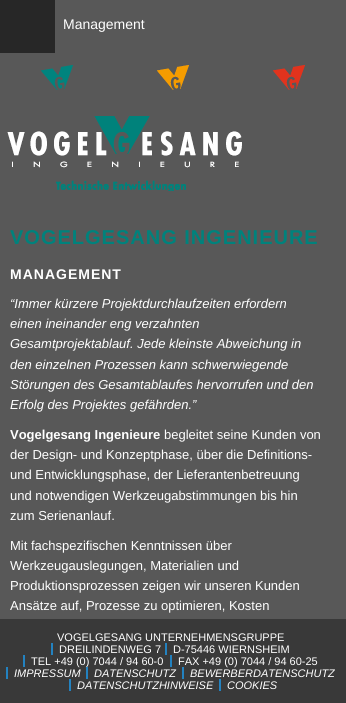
import math
import cairo


def use_color(cr, r, g, b):
  cr.set_source_rgb(r / 255, g / 255, b / 255)

def text(cr, x, y, s, family, size, color, bold=False, italic=False):
  cr.select_font_face(family, cairo.FONT_SLANT_ITALIC if italic else cairo.FONT_SLANT_NORMAL, cairo.FONT_WEIGHT_BOLD if bold else cairo.FONT_WEIGHT_NORMAL)
  cr.set_font_size(size)
  use_color(cr, *color)
  cr.move_to(x, y)
  cr.show_text(s)

def spaced_text(cr, x, y, s, letter, word):
  cr.move_to(x, y)
  for ch in s:
    cr.show_text(ch)
    cr.rel_move_to(letter + word * (ch == ' '), 0)

def box(cr, x, y, w, h, *color):
  use_color(cr, *color)
  cr.rectangle(x, y, w, h)
  cr.fill()

def picture(cr, path, x, y, w, h):
  cr.save()
  cr.set_source_surface(cairo.ImageSurface.create_from_png(path), x, y)
  cr.rectangle(x, y, w, h)
  cr.fill()
  cr.restore()

def draw(cr):
  use_color(cr, 88, 88, 88)
  cr.paint()
  box(cr, 0, 0, 55, 53, 39, 39, 39)
  picture(cr, "img_01.png", 41, 65, 32, 25)
  picture(cr, "img_02.png", 157, 65, 32, 25)
  picture(cr, "img_03.png", 273, 65, 32, 25)
  picture(cr, "img_04.png", 7, 116, 235, 75)
  box(cr, 0, 619, 346, 84, 57, 57, 57)
  box(cr, 51, 643, 2, 12, 35, 130, 192)
  box(cr, 165, 643, 2, 12, 35, 130, 192)
  box(cr, 23, 655, 2, 12, 35, 130, 192)
  box(cr, 170, 655, 2, 12, 35, 130, 192)
  box(cr, 6, 667, 2, 12, 35, 130, 192)
  box(cr, 69, 679, 2, 12, 35, 130, 192)
  box(cr, 219, 679, 2, 12, 35, 130, 192)
  text(cr, 63, 29, "Management", "Liberation Sans", 14, (255, 255, 255))
  cr.select_font_face("Liberation Sans", cairo.FONT_SLANT_NORMAL, cairo.FONT_WEIGHT_BOLD)
  cr.set_font_size(20)
  use_color(cr, 0, 130, 124)
  spaced_text(cr, 10, 244, "VOGELGESANG INGENIEURE", 1, 0)
  cr.set_font_size(14)
  use_color(cr, 255, 255, 255)
  spaced_text(cr, 10, 279, "MANAGEMENT", 1, 0)
  text(cr, 10, 308, "“Immer kürzere Projektdurchlaufzeiten erfordern", "Liberation Sans", 13, (255, 255, 255), italic=True)
  text(cr, 10, 328, "einen ineinander eng verzahnten", "Liberation Sans", 13, (255, 255, 255), italic=True)
  text(cr, 10, 348, "Gesamtprojektablauf. Jede kleinste Abweichung in", "Liberation Sans", 13, (255, 255, 255), italic=True)
  text(cr, 10, 369, "den einzelnen Prozessen kann schwerwiegende", "Liberation Sans", 13, (255, 255, 255), italic=True)
  text(cr, 10, 389, "Störungen des Gesamtablaufes hervorrufen und den", "Liberation Sans", 13, (255, 255, 255), italic=True)
  text(cr, 10, 409, "Erfolg des Projektes gefährden.”", "Liberation Sans", 13, (255, 255, 255), italic=True)
  text(cr, 10, 439, "Vogelgesang Ingenieure", "Liberation Sans", 13, (255, 255, 255), bold=True)
  text(cr, 164, 439, "begleitet seine Kunden von", "Liberation Sans", 13, (255, 255, 255))
  text(cr, 10, 459, "der Design- und Konzeptphase, über die Definitions-", "Liberation Sans", 13, (255, 255, 255))
  text(cr, 10, 479, "und Entwicklungsphase, der Lieferantenbetreuung", "Liberation Sans", 13, (255, 255, 255))
  text(cr, 10, 500, "und notwendigen Werkzeugabstimmungen bis hin", "Liberation Sans", 13, (255, 255, 255))
  text(cr, 10, 520, "zum Serienanlauf.", "Liberation Sans", 13, (255, 255, 255))
  text(cr, 10, 550, "Mit fachspezifischen Kenntnissen über", "Liberation Sans", 13, (255, 255, 255))
  text(cr, 10, 570, "Werkzeugauslegungen, Materialien und", "Liberation Sans", 13, (255, 255, 255))
  text(cr, 10, 590, "Produktionsprozessen zeigen wir unseren Kunden", "Liberation Sans", 13, (255, 255, 255))
  text(cr, 10, 610, "Ansätze auf, Prozesse zu optimieren, Kosten", "Liberation Sans", 13, (255, 255, 255))
  text(cr, 57, 641, "VOGELGESANG UNTERNEHMENSGRUPPE", "Liberation Sans", 11, (255, 255, 255))
  text(cr, 59, 653, "DREILINDENWEG 7", "Liberation Sans", 11, (255, 255, 255))
  text(cr, 173, 653, "D-75446 WIERNSHEIM", "Liberation Sans", 11, (255, 255, 255))
  text(cr, 31, 665, "TEL +49 (0) 7044 / 94 60-0", "Liberation Sans", 11, (255, 255, 255))
  text(cr, 178, 665, "FAX +49 (0) 7044 / 94 60-25", "Liberation Sans", 11, (255, 255, 255))
  text(cr, 14, 677, "IMPRESSUM", "Liberation Sans", 11, (255, 255, 255), italic=True)
  box(cr, 86, 667, 2, 12, 35, 130, 192)
  text(cr, 94, 677, "DATENSCHUTZ", "Liberation Sans", 11, (255, 255, 255), italic=True)
  box(cr, 182, 667, 2, 12, 35, 130, 192)
  text(cr, 190, 677, "BEWERBERDATENSCHUTZ", "Liberation Sans", 11, (255, 255, 255), italic=True)
  text(cr, 77, 689, "DATENSCHUTZHINWEISE", "Liberation Sans", 11, (255, 255, 255), italic=True)
  text(cr, 227, 689, "COOKIES", "Liberation Sans", 11, (255, 255, 255), italic=True)


surface = cairo.ImageSurface(cairo.FORMAT_RGB24, 346, 703)
cr = cairo.Context(surface)
options = cairo.FontOptions()
options.set_hint_metrics(cairo.HINT_METRICS_OFF)
options.set_hint_style(cairo.HINT_STYLE_NONE)
cr.set_font_options(options)
cr.set_miter_limit(4)
draw(cr)
surface.write_to_png("out.png")
